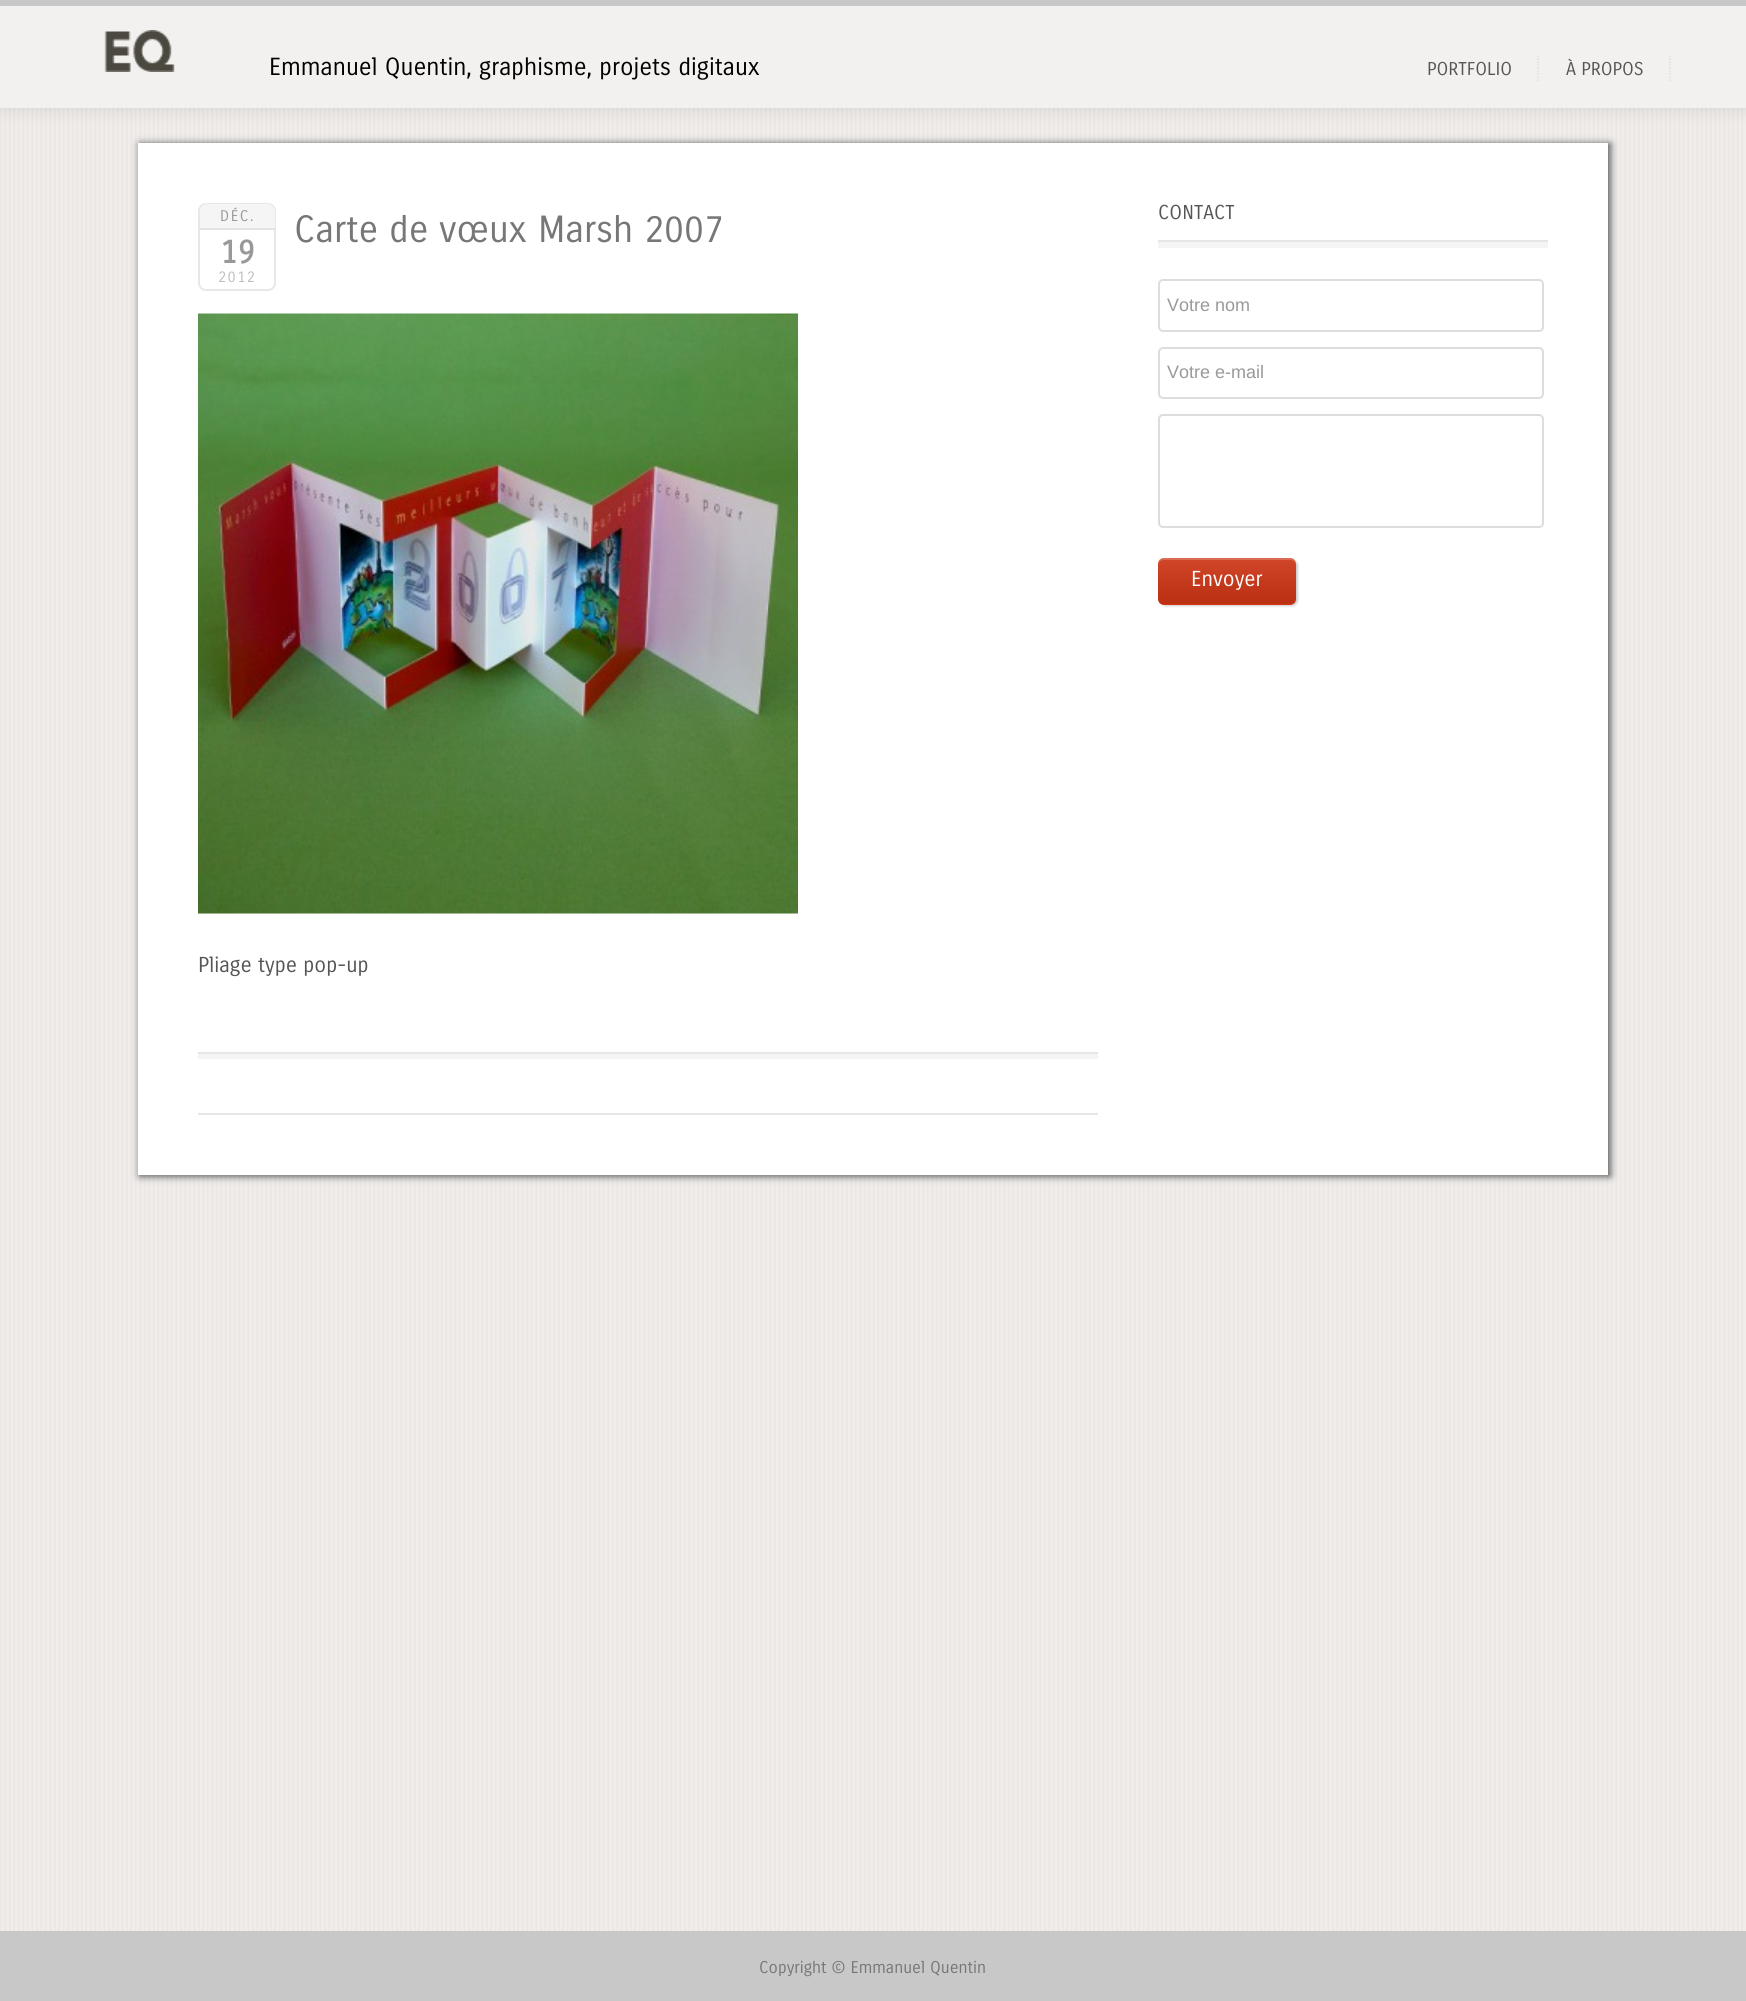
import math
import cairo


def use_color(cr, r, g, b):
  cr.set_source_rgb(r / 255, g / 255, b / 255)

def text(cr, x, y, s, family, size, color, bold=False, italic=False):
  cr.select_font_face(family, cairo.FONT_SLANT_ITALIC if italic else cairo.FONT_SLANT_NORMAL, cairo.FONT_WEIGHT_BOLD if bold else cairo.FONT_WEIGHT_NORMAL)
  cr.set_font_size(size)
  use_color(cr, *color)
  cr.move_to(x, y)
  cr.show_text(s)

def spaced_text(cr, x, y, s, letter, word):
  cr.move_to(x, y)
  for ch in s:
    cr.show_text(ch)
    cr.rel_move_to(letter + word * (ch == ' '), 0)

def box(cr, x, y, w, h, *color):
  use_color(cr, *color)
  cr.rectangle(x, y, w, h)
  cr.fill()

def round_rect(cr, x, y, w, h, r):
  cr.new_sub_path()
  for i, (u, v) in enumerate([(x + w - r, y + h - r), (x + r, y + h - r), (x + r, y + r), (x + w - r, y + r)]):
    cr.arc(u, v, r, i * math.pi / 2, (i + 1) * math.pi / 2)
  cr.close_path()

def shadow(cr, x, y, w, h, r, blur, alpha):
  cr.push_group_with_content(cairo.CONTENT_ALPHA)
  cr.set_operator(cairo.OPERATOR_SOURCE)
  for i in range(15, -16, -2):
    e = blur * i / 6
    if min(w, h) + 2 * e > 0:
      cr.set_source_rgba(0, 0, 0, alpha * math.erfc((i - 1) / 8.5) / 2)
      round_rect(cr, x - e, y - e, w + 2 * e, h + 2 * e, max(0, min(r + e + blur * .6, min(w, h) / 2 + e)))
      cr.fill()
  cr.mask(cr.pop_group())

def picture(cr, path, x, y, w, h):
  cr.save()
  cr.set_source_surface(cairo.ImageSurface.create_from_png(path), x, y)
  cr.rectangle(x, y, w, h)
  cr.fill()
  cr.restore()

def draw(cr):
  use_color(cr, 240, 237, 235)
  cr.paint()
  picture(cr, "img_01.png", 0, 108, 1743, 1823)
  use_color(cr, 0, 0, 0)
  shadow(cr, 2, 2, 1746, 108, 0, 7.5, 0.1)
  box(cr, 0, 6, 1746, 102, 243, 241, 239)
  box(cr, 0, 0, 1746, 6, 200, 200, 200)
  picture(cr, "img_02.png", 104, 30, 71, 42)
  cr.new_path()
  cr.move_to(1538, 55.5)
  cr.line_to(1538, 81)
  use_color(cr, 221, 221, 221)
  cr.set_line_width(1.5)
  cr.set_dash([1.5, 1.5])
  cr.stroke()
  cr.new_path()
  cr.move_to(1670, 55.5)
  cr.line_to(1670, 81)
  cr.stroke()
  use_color(cr, 0, 0, 0)
  shadow(cr, 140, 144, 1470, 1032, 0, 4, 0.7)
  box(cr, 138, 143, 1470, 1032, 255, 255, 255)
  round_rect(cr, 199, 204, 76, 86, 7)
  use_color(cr, 232, 232, 232)
  cr.set_line_width(2)
  cr.set_dash([])
  cr.stroke()
  use_color(cr, 245, 245, 245)
  cr.new_path()
  cr.move_to(208, 204)
  cr.line_to(267, 204)
  cr.curve_to(271.5, 204, 275, 207.5, 275, 212)
  cr.line_to(275, 230)
  cr.line_to(200, 230)
  cr.line_to(200, 212)
  cr.curve_to(200, 207.5, 203.5, 204, 208, 204)
  cr.close_path()
  cr.fill()
  box(cr, 200, 228, 75, 2, 227, 227, 227)
  box(cr, 198, 1054, 900, 5, 244, 244, 244)
  box(cr, 198, 1052, 900, 2, 230, 230, 230)
  picture(cr, "img_03.png", 198, 313, 600, 601)
  box(cr, 198, 1113, 900, 2, 230, 230, 230)
  box(cr, 1158, 242, 390, 6, 244, 244, 244)
  box(cr, 1158, 240, 390, 2, 230, 230, 230)
  round_rect(cr, 1159, 280, 384, 51, 4)
  use_color(cr, 221, 221, 221)
  cr.stroke()
  round_rect(cr, 1159, 348, 384, 50, 4)
  cr.stroke()
  round_rect(cr, 1159, 415, 384, 112, 4)
  cr.stroke()
  use_color(cr, 0, 0, 0)
  shadow(cr, 1160, 560, 138, 46, 6, 1, 0.2)
  use_color(cr, 222, 57, 23)
  round_rect(cr, 1158, 558, 138, 47, 6)
  cr.fill()
  picture(cr, "img_04.png", 1158, 558, 138, 47)
  cr.set_source_rgba(1, 1, 1, 0.2)
  cr.new_path()
  cr.move_to(1164, 560)
  cr.line_to(1290, 560)
  cr.curve_to(1293, 560, 1296, 562, 1296, 566)
  cr.line_to(1296, 564)
  cr.curve_to(1296, 561, 1293, 558, 1290, 558)
  cr.line_to(1164, 558)
  cr.curve_to(1161, 558, 1158, 561, 1158, 564)
  cr.line_to(1158, 566)
  cr.curve_to(1158, 562, 1161, 560, 1164, 560)
  cr.close_path()
  cr.fill()
  box(cr, 0, 1931, 1746, 70, 200, 200, 200)
  text(cr, 269, 75, "Emmanuel Quentin, graphisme, projets digitaux", "Carrois Gothic", 24, (0, 0, 0))
  text(cr, 1427, 75, "PORTFOLIO", "Carrois Gothic", 18, (85, 85, 85))
  text(cr, 1566, 75, "À PROPOS", "Carrois Gothic", 18, (85, 85, 85))
  cr.set_font_size(15)
  use_color(cr, 153, 153, 153)
  spaced_text(cr, 220, 221, "DÉC.", 1.5, 0)
  text(cr, 220, 263, "19", "Carrois Gothic", 32, (153, 153, 153), bold=True)
  cr.select_font_face("Carrois Gothic")
  cr.set_font_size(15)
  use_color(cr, 190, 190, 190)
  spaced_text(cr, 218, 282, "2012", 1.5, 0)
  text(cr, 294, 242, "Carte de vœux Marsh 2007", "Carrois Gothic", 36.75, (119, 119, 119))
  text(cr, 198, 972, "Pliage type pop-up", "Carrois Gothic", 21, (85, 85, 85))
  text(cr, 1158, 219, "CONTACT", "Carrois Gothic", 19.5, (85, 85, 85))
  text(cr, 1167, 311, "Votre nom", "Liberation Sans", 18, (153, 153, 153))
  text(cr, 1167, 378, "Votre e-mail", "Liberation Sans", 18, (153, 153, 153))
  text(cr, 1191, 586, "Envoyer", "Carrois Gothic", 21, (255, 255, 255))
  text(cr, 759, 1973, "Copyright © Emmanuel Quentin", "Carrois Gothic", 16.5, (119, 119, 119))


surface = cairo.ImageSurface(cairo.FORMAT_RGB24, 1746, 2001)
cr = cairo.Context(surface)
options = cairo.FontOptions()
options.set_hint_metrics(cairo.HINT_METRICS_OFF)
options.set_hint_style(cairo.HINT_STYLE_NONE)
cr.set_font_options(options)
cr.set_miter_limit(4)
draw(cr)
surface.write_to_png("out.png")
